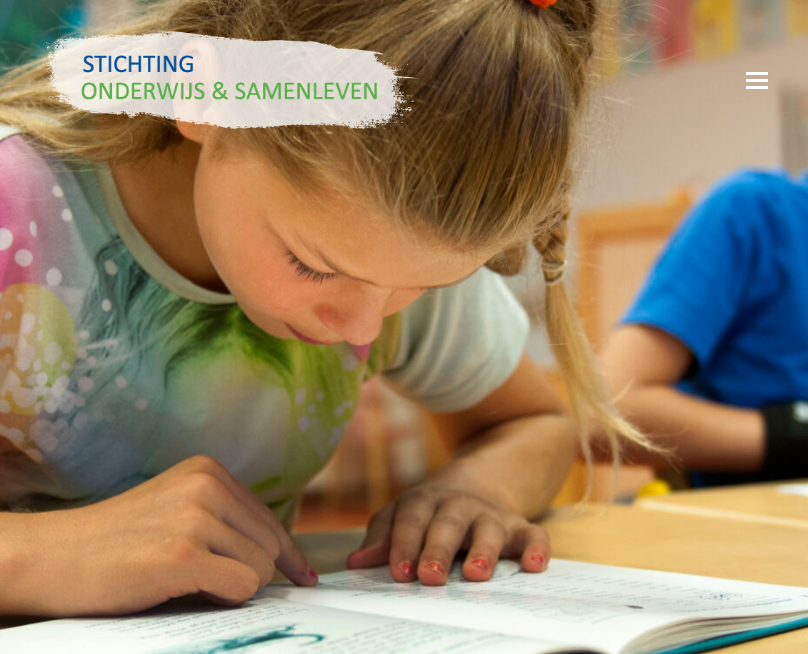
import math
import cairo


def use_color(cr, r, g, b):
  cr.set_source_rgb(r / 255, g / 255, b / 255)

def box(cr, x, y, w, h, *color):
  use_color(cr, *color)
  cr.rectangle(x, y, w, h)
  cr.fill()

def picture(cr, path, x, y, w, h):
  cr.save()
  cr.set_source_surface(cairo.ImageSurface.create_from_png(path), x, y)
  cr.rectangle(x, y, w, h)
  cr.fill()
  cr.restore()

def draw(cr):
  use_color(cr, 255, 255, 255)
  cr.paint()
  picture(cr, "img_01.png", 0, 0, 808, 654)
  picture(cr, "img_02.png", 42, 30, 378, 100)
  box(cr, 746, 79, 22, 3, 255, 255, 255)
  box(cr, 746, 72, 22, 3, 255, 255, 255)
  box(cr, 746, 86, 22, 3, 255, 255, 255)


surface = cairo.ImageSurface(cairo.FORMAT_RGB24, 808, 654)
cr = cairo.Context(surface)
options = cairo.FontOptions()
options.set_hint_metrics(cairo.HINT_METRICS_OFF)
options.set_hint_style(cairo.HINT_STYLE_NONE)
cr.set_font_options(options)
cr.set_miter_limit(4)
draw(cr)
surface.write_to_png("out.png")
